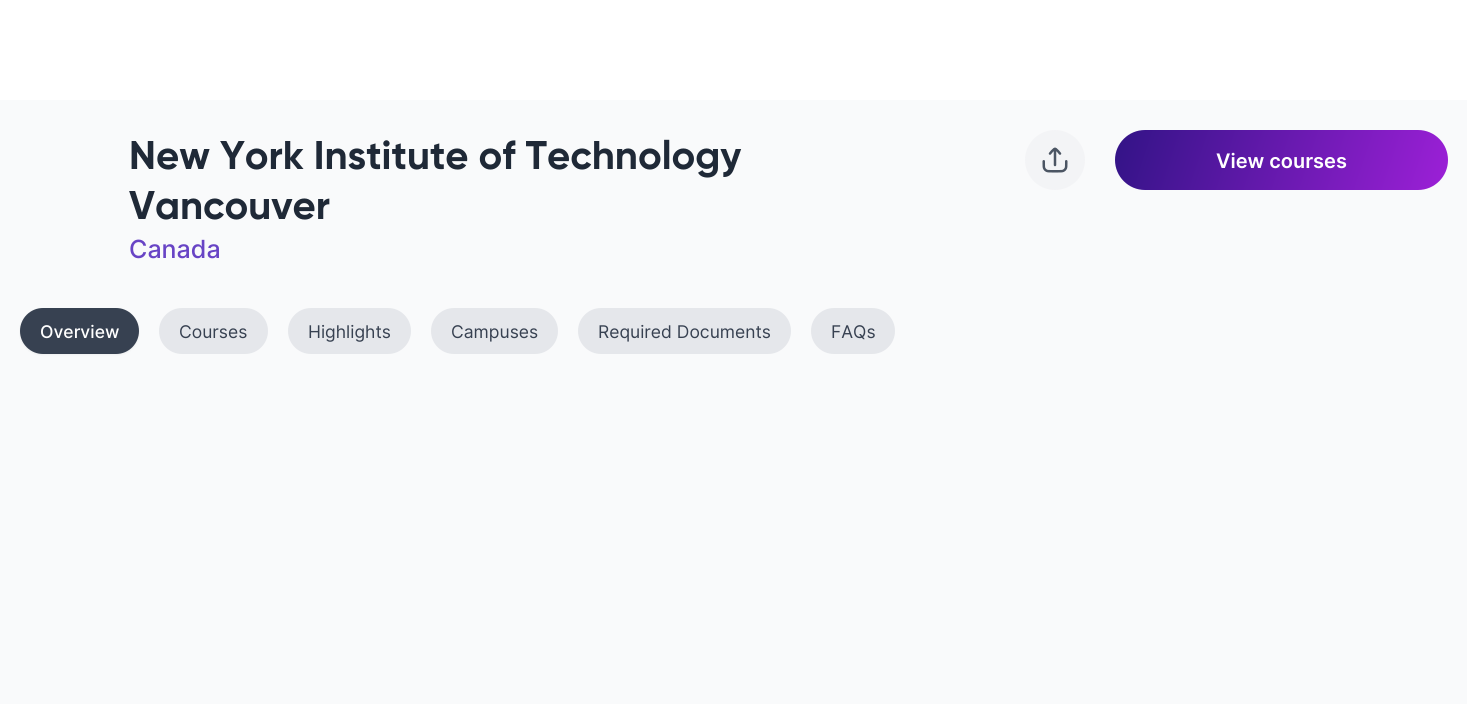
import math
import cairo


def use_color(cr, r, g, b):
  cr.set_source_rgb(r / 255, g / 255, b / 255)

def text(cr, x, y, s, family, size, color, bold=False, italic=False):
  cr.select_font_face(family, cairo.FONT_SLANT_ITALIC if italic else cairo.FONT_SLANT_NORMAL, cairo.FONT_WEIGHT_BOLD if bold else cairo.FONT_WEIGHT_NORMAL)
  cr.set_font_size(size)
  use_color(cr, *color)
  cr.move_to(x, y)
  cr.show_text(s)

def box(cr, x, y, w, h, *color):
  use_color(cr, *color)
  cr.rectangle(x, y, w, h)
  cr.fill()

def round_rect(cr, x, y, w, h, r):
  cr.new_sub_path()
  for i, (u, v) in enumerate([(x + w - r, y + h - r), (x + r, y + h - r), (x + r, y + r), (x + w - r, y + r)]):
    cr.arc(u, v, r, i * math.pi / 2, (i + 1) * math.pi / 2)
  cr.close_path()

def shadow(cr, x, y, w, h, r, blur, alpha):
  cr.push_group_with_content(cairo.CONTENT_ALPHA)
  cr.set_operator(cairo.OPERATOR_SOURCE)
  for i in range(15, -16, -2):
    e = blur * i / 6
    if min(w, h) + 2 * e > 0:
      cr.set_source_rgba(0, 0, 0, alpha * math.erfc((i - 1) / 8.5) / 2)
      round_rect(cr, x - e, y - e, w + 2 * e, h + 2 * e, max(0, min(r + e + blur * .6, min(w, h) / 2 + e)))
      cr.fill()
  cr.mask(cr.pop_group())

def picture(cr, path, x, y, w, h):
  cr.save()
  cr.set_source_surface(cairo.ImageSurface.create_from_png(path), x, y)
  cr.rectangle(x, y, w, h)
  cr.fill()
  cr.restore()

def draw(cr):
  use_color(cr, 249, 250, 251)
  cr.paint()
  box(cr, 0, 0, 1467, 100, 255, 255, 255)
  use_color(cr, 243, 244, 246)
  cr.arc(1055, 160, 30, 0, 2 * math.pi)
  cr.fill()
  picture(cr, "img_01.png", 1042, 147, 26, 26)
  gradient = cairo.LinearGradient(1122, 108, 1440, 212)
  gradient.add_color_stop_rgba(0, 0.196, 0.075, 0.525, 1)
  gradient.add_color_stop_rgba(1, 0.612, 0.125, 0.843, 1)
  cr.set_source(gradient)
  round_rect(cr, 1115, 130, 333, 60, 30)
  cr.fill()
  use_color(cr, 0, 0, 0)
  shadow(cr, 20, 309, 119, 46, 23, 1, 0.05)
  use_color(cr, 55, 65, 81)
  round_rect(cr, 20, 308, 119, 46, 23)
  cr.fill()
  use_color(cr, 229, 231, 235)
  round_rect(cr, 159, 308, 109, 46, 23)
  cr.fill()
  round_rect(cr, 288, 308, 123, 46, 23)
  cr.fill()
  round_rect(cr, 431, 308, 127, 46, 23)
  cr.fill()
  round_rect(cr, 578, 308, 213, 46, 23)
  cr.fill()
  round_rect(cr, 811, 308, 84, 46, 23)
  cr.fill()
  text(cr, 129, 169, "New York Institute of Technology", "Gilroy", 40, (31, 41, 55), bold=True)
  text(cr, 129, 219, "Vancouver", "Gilroy", 40, (31, 41, 55), bold=True)
  text(cr, 129, 258, "Canada", "Inter Medium", 25, (104, 68, 197))
  text(cr, 1216, 168, "View courses", "Inter SemiBold", 20, (255, 255, 255))
  text(cr, 40, 338, "Overview", "Inter Medium", 17.5, (255, 255, 255))
  text(cr, 179, 338, "Courses", "Inter", 17.5, (55, 65, 81))
  text(cr, 308, 338, "Highlights", "Inter", 17.5, (55, 65, 81))
  text(cr, 451, 338, "Campuses", "Inter", 17.5, (55, 65, 81))
  text(cr, 598, 338, "Required Documents", "Inter", 17.5, (55, 65, 81))
  text(cr, 831, 338, "FAQs", "Inter", 17.5, (55, 65, 81))


surface = cairo.ImageSurface(cairo.FORMAT_RGB24, 1467, 704)
cr = cairo.Context(surface)
options = cairo.FontOptions()
options.set_hint_metrics(cairo.HINT_METRICS_OFF)
options.set_hint_style(cairo.HINT_STYLE_NONE)
cr.set_font_options(options)
cr.set_miter_limit(4)
draw(cr)
surface.write_to_png("out.png")
